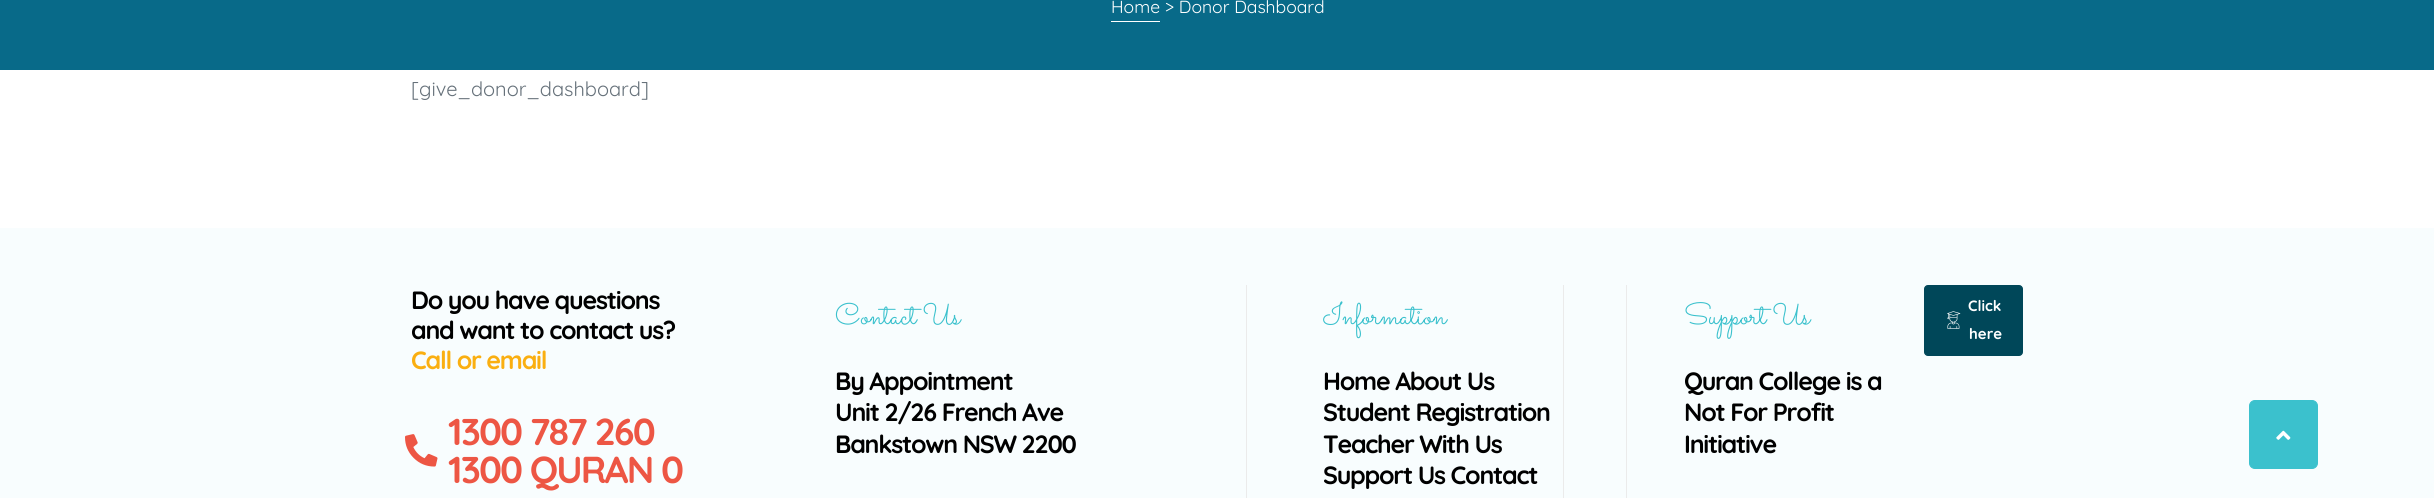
import math
import cairo


def use_color(cr, r, g, b):
  cr.set_source_rgb(r / 255, g / 255, b / 255)

def text(cr, x, y, s, family, size, color, bold=False, italic=False):
  cr.select_font_face(family, cairo.FONT_SLANT_ITALIC if italic else cairo.FONT_SLANT_NORMAL, cairo.FONT_WEIGHT_BOLD if bold else cairo.FONT_WEIGHT_NORMAL)
  cr.set_font_size(size)
  use_color(cr, *color)
  cr.move_to(x, y)
  cr.show_text(s)

def spaced_text(cr, x, y, s, letter, word):
  cr.move_to(x, y)
  for ch in s:
    cr.show_text(ch)
    cr.rel_move_to(letter + word * (ch == ' '), 0)

def box(cr, x, y, w, h, *color):
  use_color(cr, *color)
  cr.rectangle(x, y, w, h)
  cr.fill()

def round_rect(cr, x, y, w, h, r):
  cr.new_sub_path()
  for i, (u, v) in enumerate([(x + w - r, y + h - r), (x + r, y + h - r), (x + r, y + r), (x + w - r, y + r)]):
    cr.arc(u, v, r, i * math.pi / 2, (i + 1) * math.pi / 2)
  cr.close_path()

def picture(cr, path, x, y, w, h):
  cr.save()
  cr.set_source_surface(cairo.ImageSurface.create_from_png(path), x, y)
  cr.rectangle(x, y, w, h)
  cr.fill()
  cr.restore()

def draw(cr):
  use_color(cr, 255, 255, 255)
  cr.paint()
  box(cr, 0, 0, 2434, 70, 8, 106, 137)
  box(cr, 1111, 21, 49, 1, 255, 255, 255)
  box(cr, 0, 228, 2434, 270, 248, 253, 254)
  picture(cr, "img_01.png", 405, 434, 33, 33)
  box(cr, 1563, 285, 1, 213, 235, 235, 235)
  box(cr, 1246, 285, 1, 213, 235, 235, 235)
  box(cr, 1626, 285, 1, 213, 235, 235, 235)
  use_color(cr, 0, 71, 89)
  round_rect(cr, 1924.5, 285.5, 98, 70, 3.5)
  cr.fill_preserve()
  cr.set_line_width(1)
  cr.stroke()
  picture(cr, "img_02.png", 1947, 311, 14, 18)
  use_color(cr, 59, 193, 205)
  round_rect(cr, 2249.5, 400.5, 68, 68, 5.5)
  cr.fill_preserve()
  cr.stroke()
  picture(cr, "img_03.png", 2276, 430, 15, 10)
  text(cr, 1111, 13, "Home > Donor Dashboard", "Quicksand", 17.5, (255, 255, 255))
  text(cr, 411, 96, "[give_donor_dashboard]", "Quicksand", 20, (102, 113, 122))
  cr.select_font_face("Quicksand", cairo.FONT_SLANT_NORMAL, cairo.FONT_WEIGHT_BOLD)
  cr.set_font_size(25)
  use_color(cr, 0, 0, 0)
  spaced_text(cr, 411, 309, "Do you have questions", -1.25, 0)
  spaced_text(cr, 411, 339, "and want to contact us?", -1.25, 0)
  use_color(cr, 250, 175, 17)
  spaced_text(cr, 411, 369, "Call or email", -1.25, 0)
  cr.set_font_size(37.5)
  use_color(cr, 237, 86, 68)
  spaced_text(cr, 448, 445, "1300 787 260", -1.9, 0)
  spaced_text(cr, 448, 483, "1300 QURAN 0", -1.9, 0)
  text(cr, 835, 324, "Contact Us", "Sacramento", 30, (59, 193, 205))
  cr.select_font_face("Quicksand", cairo.FONT_SLANT_NORMAL, cairo.FONT_WEIGHT_BOLD)
  cr.set_font_size(25)
  use_color(cr, 0, 0, 0)
  spaced_text(cr, 835, 390, "By Appointment", -1.25, 0)
  spaced_text(cr, 835, 421, "Unit 2/26 French Ave", -1.25, 0)
  spaced_text(cr, 835, 453, "Bankstown NSW 2200", -1.25, 0)
  text(cr, 1323, 324, "Information", "Sacramento", 30, (59, 193, 205))
  cr.select_font_face("Quicksand", cairo.FONT_SLANT_NORMAL, cairo.FONT_WEIGHT_BOLD)
  cr.set_font_size(25)
  use_color(cr, 0, 0, 0)
  spaced_text(cr, 1323, 390, "Home About Us", -1.25, 0)
  spaced_text(cr, 1323, 421, "Student Registration", -1.25, 0)
  spaced_text(cr, 1323, 453, "Teacher With Us", -1.25, 0)
  spaced_text(cr, 1323, 484, "Support Us Contact", -1.25, 0)
  text(cr, 1684, 324, "Support Us", "Sacramento", 30, (59, 193, 205))
  cr.select_font_face("Quicksand", cairo.FONT_SLANT_NORMAL, cairo.FONT_WEIGHT_BOLD)
  cr.set_font_size(25)
  use_color(cr, 0, 0, 0)
  spaced_text(cr, 1684, 390, "Quran College is a", -1.25, 0)
  spaced_text(cr, 1684, 421, "Not For Profit", -1.25, 0)
  spaced_text(cr, 1684, 453, "Initiative", -1.25, 0)
  text(cr, 1968, 311, "Click", "Quicksand", 15, (255, 255, 255), bold=True)
  text(cr, 1969, 339, "here", "Quicksand", 15, (255, 255, 255), bold=True)


surface = cairo.ImageSurface(cairo.FORMAT_RGB24, 2434, 498)
cr = cairo.Context(surface)
options = cairo.FontOptions()
options.set_hint_metrics(cairo.HINT_METRICS_OFF)
options.set_hint_style(cairo.HINT_STYLE_NONE)
cr.set_font_options(options)
cr.set_miter_limit(4)
draw(cr)
surface.write_to_png("out.png")
